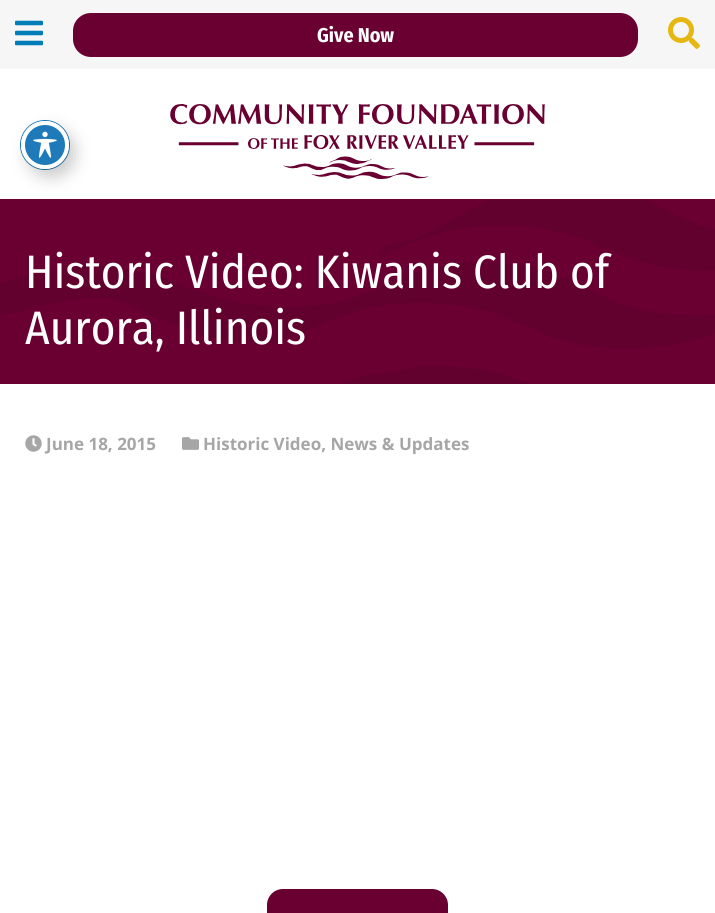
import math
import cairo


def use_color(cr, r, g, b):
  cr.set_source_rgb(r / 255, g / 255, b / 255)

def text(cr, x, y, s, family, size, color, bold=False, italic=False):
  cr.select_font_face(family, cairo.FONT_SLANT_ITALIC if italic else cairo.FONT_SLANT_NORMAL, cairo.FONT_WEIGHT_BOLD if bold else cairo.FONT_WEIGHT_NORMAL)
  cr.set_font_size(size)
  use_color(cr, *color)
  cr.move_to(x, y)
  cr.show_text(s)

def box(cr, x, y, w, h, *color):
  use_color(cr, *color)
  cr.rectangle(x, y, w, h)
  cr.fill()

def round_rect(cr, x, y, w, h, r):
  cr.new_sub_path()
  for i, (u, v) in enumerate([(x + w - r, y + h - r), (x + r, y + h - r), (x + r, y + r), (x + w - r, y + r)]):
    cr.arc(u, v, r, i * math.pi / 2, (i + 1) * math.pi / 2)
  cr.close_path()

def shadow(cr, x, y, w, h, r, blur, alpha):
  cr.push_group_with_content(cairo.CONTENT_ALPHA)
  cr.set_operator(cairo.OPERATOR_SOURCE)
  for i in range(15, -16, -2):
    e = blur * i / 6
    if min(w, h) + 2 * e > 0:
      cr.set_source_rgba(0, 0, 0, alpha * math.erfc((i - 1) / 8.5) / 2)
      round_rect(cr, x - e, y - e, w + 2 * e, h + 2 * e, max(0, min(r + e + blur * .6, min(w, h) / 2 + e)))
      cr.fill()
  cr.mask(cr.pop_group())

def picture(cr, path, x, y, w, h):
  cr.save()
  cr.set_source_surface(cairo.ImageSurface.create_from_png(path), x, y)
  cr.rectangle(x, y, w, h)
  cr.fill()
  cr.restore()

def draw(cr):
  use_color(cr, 246, 246, 246)
  cr.paint()
  picture(cr, "img_01.png", 15, 20, 28, 26)
  use_color(cr, 106, 0, 50)
  round_rect(cr, 73, 13, 565, 44, 18)
  cr.fill()
  picture(cr, "img_02.png", 668, 17, 32, 32)
  box(cr, 0, 69, 715, 130, 255, 255, 255)
  picture(cr, "img_03.png", 170, 104, 375, 75)
  box(cr, 0, 199, 715, 185, 106, 0, 50)
  picture(cr, "img_04.png", 0, 199, 715, 185)
  box(cr, 0, 384, 715, 529, 255, 255, 255)
  picture(cr, "img_05.png", 25, 435, 17, 17)
  picture(cr, "img_06.png", 182, 437, 17, 13)
  use_color(cr, 106, 0, 50)
  round_rect(cr, 267, 889, 181, 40, 16)
  cr.fill()
  cr.arc(45, 145, 24.5, 0, 2 * math.pi)
  use_color(cr, 30, 122, 185)
  cr.set_line_width(1)
  cr.stroke()
  use_color(cr, 0, 0, 0)
  shadow(cr, 27, 129, 48, 48, 24, 8, 0.2)
  use_color(cr, 30, 122, 185)
  cr.arc(45, 145, 22, 0, 2 * math.pi)
  cr.fill_preserve()
  use_color(cr, 255, 255, 255)
  cr.set_line_width(4)
  cr.stroke()
  picture(cr, "img_07.png", 33, 131, 24, 27)
  text(cr, 317, 42, "Give Now", "Fira Sans Condensed", 20, (255, 255, 255), bold=True)
  text(cr, 25, 288, "Historic Video: Kiwanis Club of", "Fira Sans Condensed", 47, (255, 255, 255))
  text(cr, 25, 344, "Aurora, Illinois", "Fira Sans Condensed", 47, (255, 255, 255))
  text(cr, 46, 450, "June 18, 2015", "Open Sans", 17, (166, 166, 166), bold=True)
  text(cr, 203, 450, "Historic Video, News & Updates", "Open Sans", 17, (166, 166, 166), bold=True)


surface = cairo.ImageSurface(cairo.FORMAT_RGB24, 715, 913)
cr = cairo.Context(surface)
options = cairo.FontOptions()
options.set_hint_metrics(cairo.HINT_METRICS_OFF)
options.set_hint_style(cairo.HINT_STYLE_NONE)
cr.set_font_options(options)
cr.set_miter_limit(4)
draw(cr)
surface.write_to_png("out.png")
